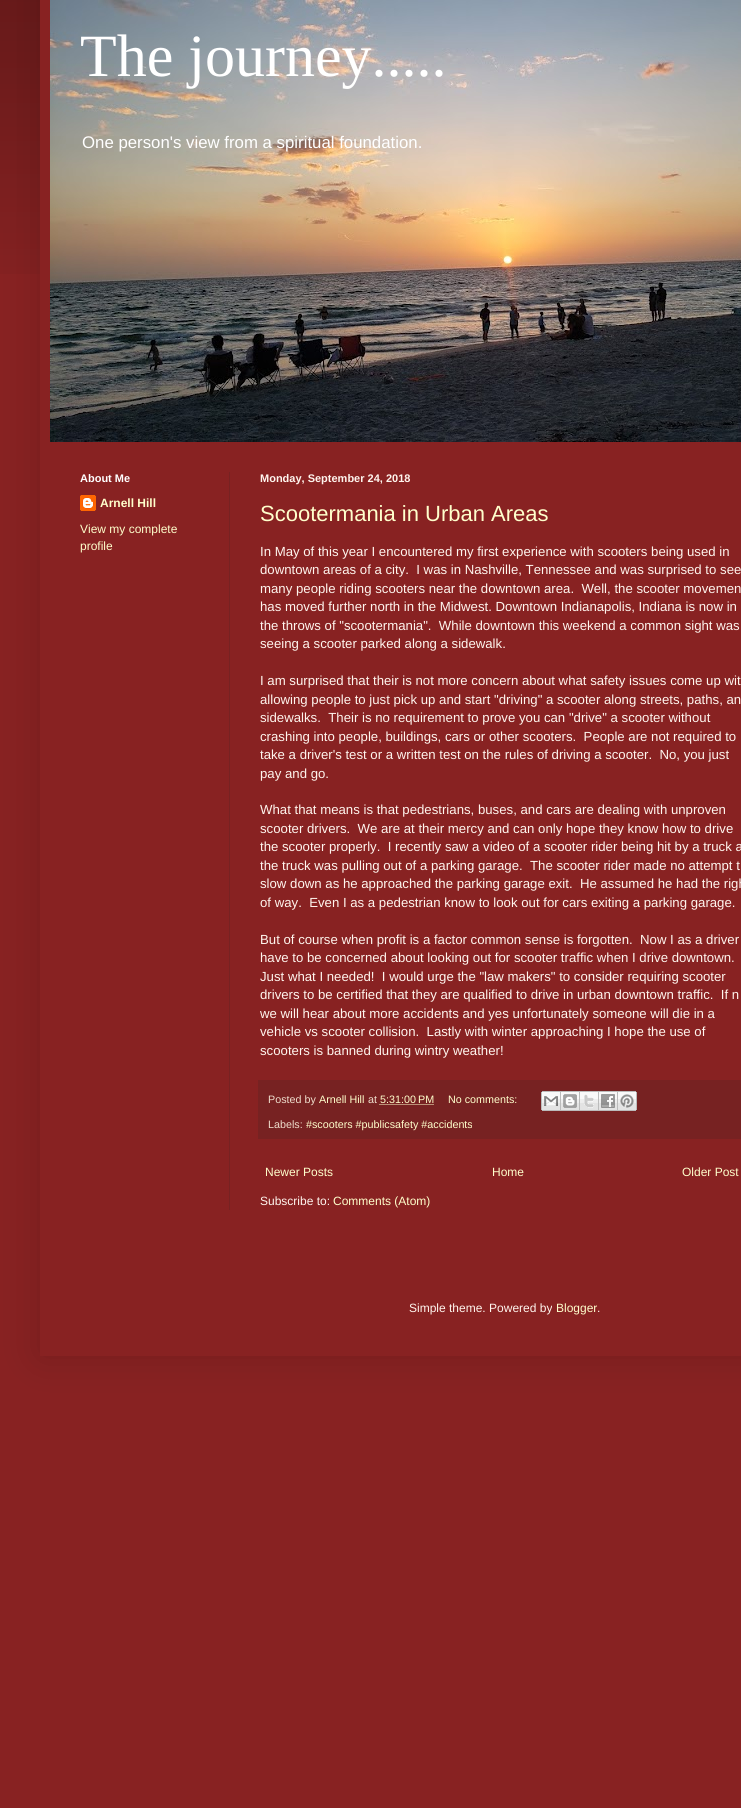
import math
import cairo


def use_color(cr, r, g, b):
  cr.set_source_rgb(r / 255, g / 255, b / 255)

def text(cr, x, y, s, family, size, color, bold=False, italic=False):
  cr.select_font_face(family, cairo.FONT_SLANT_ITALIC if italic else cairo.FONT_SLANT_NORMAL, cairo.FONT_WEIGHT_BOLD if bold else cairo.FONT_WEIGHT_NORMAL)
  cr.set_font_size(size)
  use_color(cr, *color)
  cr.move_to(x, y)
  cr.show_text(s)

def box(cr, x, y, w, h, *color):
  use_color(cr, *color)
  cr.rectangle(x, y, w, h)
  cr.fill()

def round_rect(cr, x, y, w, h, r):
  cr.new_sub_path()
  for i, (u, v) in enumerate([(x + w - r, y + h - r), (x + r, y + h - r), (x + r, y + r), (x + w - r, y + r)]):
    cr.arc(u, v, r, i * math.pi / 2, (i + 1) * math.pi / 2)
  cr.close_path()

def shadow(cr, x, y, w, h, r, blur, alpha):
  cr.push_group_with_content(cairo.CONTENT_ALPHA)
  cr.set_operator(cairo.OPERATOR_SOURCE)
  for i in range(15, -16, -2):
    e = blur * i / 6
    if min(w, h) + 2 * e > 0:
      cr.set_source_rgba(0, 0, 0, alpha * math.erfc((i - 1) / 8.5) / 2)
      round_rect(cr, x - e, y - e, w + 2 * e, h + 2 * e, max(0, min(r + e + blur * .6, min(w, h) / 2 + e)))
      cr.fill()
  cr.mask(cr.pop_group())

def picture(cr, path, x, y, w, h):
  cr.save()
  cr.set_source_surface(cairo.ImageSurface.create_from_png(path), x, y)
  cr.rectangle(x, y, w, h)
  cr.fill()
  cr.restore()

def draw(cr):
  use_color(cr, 136, 34, 34)
  cr.paint()
  picture(cr, "img_01.png", 0, 0, 40, 274)
  use_color(cr, 0, 0, 0)
  shadow(cr, 40, -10, 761, 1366, 0, 20, 0.15)
  box(cr, 40, 0, 701, 1356, 136, 34, 34)
  picture(cr, "img_02.png", 50, 0, 691, 442)
  box(cr, 229, 472, 1, 738, 119, 34, 34)
  picture(cr, "img_03.png", 80, 495, 16, 16)
  box(cr, 258, 1080, 483, 59, 119, 34, 34)
  cr.new_path()
  cr.move_to(379.5, 1104.5)
  cr.line_to(434, 1104.5)
  use_color(cr, 255, 255, 204)
  cr.set_line_width(1)
  cr.set_dash([1, 1])
  cr.stroke()
  picture(cr, "img_04.png", 541, 1091, 20, 20)
  picture(cr, "img_05.png", 561, 1091, 19, 20)
  picture(cr, "img_06.png", 580, 1091, 19, 20)
  picture(cr, "img_07.png", 599, 1091, 19, 20)
  picture(cr, "img_08.png", 618, 1091, 19, 20)
  text(cr, 80, 76, "The journey.....", "Liberation Serif", 60, (255, 255, 255))
  text(cr, 82, 148, "One person's view from a spiritual foundation.", "Liberation Sans", 16.8, (255, 255, 255))
  text(cr, 80, 482, "About Me", "Liberation Sans", 11, (255, 255, 255), bold=True)
  text(cr, 100, 507, "Arnell Hill", "Liberation Sans", 12, (255, 255, 204), bold=True)
  text(cr, 80, 533, "View my complete", "Liberation Sans", 12, (255, 255, 204))
  text(cr, 80, 550, "profile", "Liberation Sans", 12, (255, 255, 204))
  text(cr, 260, 482, "Monday, September 24, 2018", "Liberation Sans", 11, (255, 245, 238), bold=True)
  text(cr, 260, 521, "Scootermania in Urban Areas", "Liberation Sans", 22, (255, 255, 204))
  text(cr, 260, 556, "In May of this year I encountered my first experience with scooters being used in", "Liberation Sans", 13.2, (255, 245, 238))
  text(cr, 260, 574, "downtown areas of a city.  I was in Nashville, Tennessee and was surprised to see", "Liberation Sans", 13.2, (255, 245, 238))
  text(cr, 260, 593, "many people riding scooters near the downtown area.  Well, the scooter movemen", "Liberation Sans", 13.2, (255, 245, 238))
  text(cr, 260, 611, "has moved further north in the Midwest. Downtown Indianapolis, Indiana is now in", "Liberation Sans", 13.2, (255, 245, 238))
  text(cr, 260, 630, "the throws of \"scootermania\".  While downtown this weekend a common sight was", "Liberation Sans", 13.2, (255, 245, 238))
  text(cr, 260, 648, "seeing a scooter parked along a sidewalk.", "Liberation Sans", 13.2, (255, 245, 238))
  text(cr, 260, 685, "I am surprised that their is not more concern about what safety issues come up wit", "Liberation Sans", 13.2, (255, 245, 238))
  text(cr, 260, 704, "allowing people to just pick up and start \"driving\" a scooter along streets, paths, an", "Liberation Sans", 13.2, (255, 245, 238))
  text(cr, 260, 722, "sidewalks.  Their is no requirement to prove you can \"drive\" a scooter without", "Liberation Sans", 13.2, (255, 245, 238))
  text(cr, 260, 741, "crashing into people, buildings, cars or other scooters.  People are not required to", "Liberation Sans", 13.2, (255, 245, 238))
  text(cr, 260, 759, "take a driver's test or a written test on the rules of driving a scooter.  No, you just", "Liberation Sans", 13.2, (255, 245, 238))
  text(cr, 260, 778, "pay and go.", "Liberation Sans", 13.2, (255, 245, 238))
  text(cr, 260, 814, "What that means is that pedestrians, buses, and cars are dealing with unproven", "Liberation Sans", 13.2, (255, 245, 238))
  text(cr, 260, 833, "scooter drivers.  We are at their mercy and can only hope they know how to drive", "Liberation Sans", 13.2, (255, 245, 238))
  text(cr, 260, 851, "the scooter properly.  I recently saw a video of a scooter rider being hit by a truck a", "Liberation Sans", 13.2, (255, 245, 238))
  text(cr, 260, 870, "the truck was pulling out of a parking garage.  The scooter rider made no attempt t", "Liberation Sans", 13.2, (255, 245, 238))
  text(cr, 260, 888, "slow down as he approached the parking garage exit.  He assumed he had the righ", "Liberation Sans", 13.2, (255, 245, 238))
  text(cr, 260, 907, "of way.  Even I as a pedestrian know to look out for cars exiting a parking garage.", "Liberation Sans", 13.2, (255, 245, 238))
  text(cr, 260, 944, "But of course when profit is a factor common sense is forgotten.  Now I as a driver", "Liberation Sans", 13.2, (255, 245, 238))
  text(cr, 260, 962, "have to be concerned about looking out for scooter traffic when I drive downtown.", "Liberation Sans", 13.2, (255, 245, 238))
  text(cr, 260, 981, "Just what I needed!  I would urge the \"law makers\" to consider requiring scooter", "Liberation Sans", 13.2, (255, 245, 238))
  text(cr, 260, 999, "drivers to be certified that they are qualified to drive in urban downtown traffic.  If n", "Liberation Sans", 13.2, (255, 245, 238))
  text(cr, 260, 1018, "we will hear about more accidents and yes unfortunately someone will die in a", "Liberation Sans", 13.2, (255, 245, 238))
  text(cr, 260, 1036, "vehicle vs scooter collision.  Lastly with winter approaching I hope the use of", "Liberation Sans", 13.2, (255, 245, 238))
  text(cr, 260, 1055, "scooters is banned during wintry weather!", "Liberation Sans", 13.2, (255, 245, 238))
  text(cr, 268, 1103, "Posted by", "Liberation Sans", 10.75, (238, 221, 204))
  text(cr, 319, 1103, "Arnell Hill", "Liberation Sans", 10.75, (255, 255, 204))
  text(cr, 368, 1103, "at", "Liberation Sans", 10.75, (238, 221, 204))
  text(cr, 380, 1103, "5:31:00 PM", "Liberation Sans", 10.75, (255, 255, 204))
  text(cr, 448, 1103, "No comments:", "Liberation Sans", 10.75, (255, 255, 204))
  text(cr, 268, 1128, "Labels:", "Liberation Sans", 10.75, (238, 221, 204))
  text(cr, 306, 1128, "#scooters #publicsafety #accidents", "Liberation Sans", 10.75, (255, 255, 204))
  text(cr, 265, 1176, "Newer Posts", "Liberation Sans", 12, (255, 255, 204))
  text(cr, 492, 1176, "Home", "Liberation Sans", 12, (255, 255, 204))
  text(cr, 682, 1176, "Older Post", "Liberation Sans", 12, (255, 255, 204))
  text(cr, 260, 1205, "Subscribe to:", "Liberation Sans", 12, (255, 245, 238))
  text(cr, 333, 1205, "Comments (Atom)", "Liberation Sans", 12, (255, 255, 204))
  text(cr, 409, 1312, "Simple theme. Powered by", "Liberation Sans", 12, (255, 245, 238))
  text(cr, 556, 1312, "Blogger", "Liberation Sans", 12, (255, 255, 204))
  text(cr, 597, 1312, ".", "Liberation Sans", 12, (255, 245, 238))


surface = cairo.ImageSurface(cairo.FORMAT_RGB24, 741, 1808)
cr = cairo.Context(surface)
options = cairo.FontOptions()
options.set_hint_metrics(cairo.HINT_METRICS_OFF)
options.set_hint_style(cairo.HINT_STYLE_NONE)
cr.set_font_options(options)
cr.set_miter_limit(4)
draw(cr)
surface.write_to_png("out.png")
